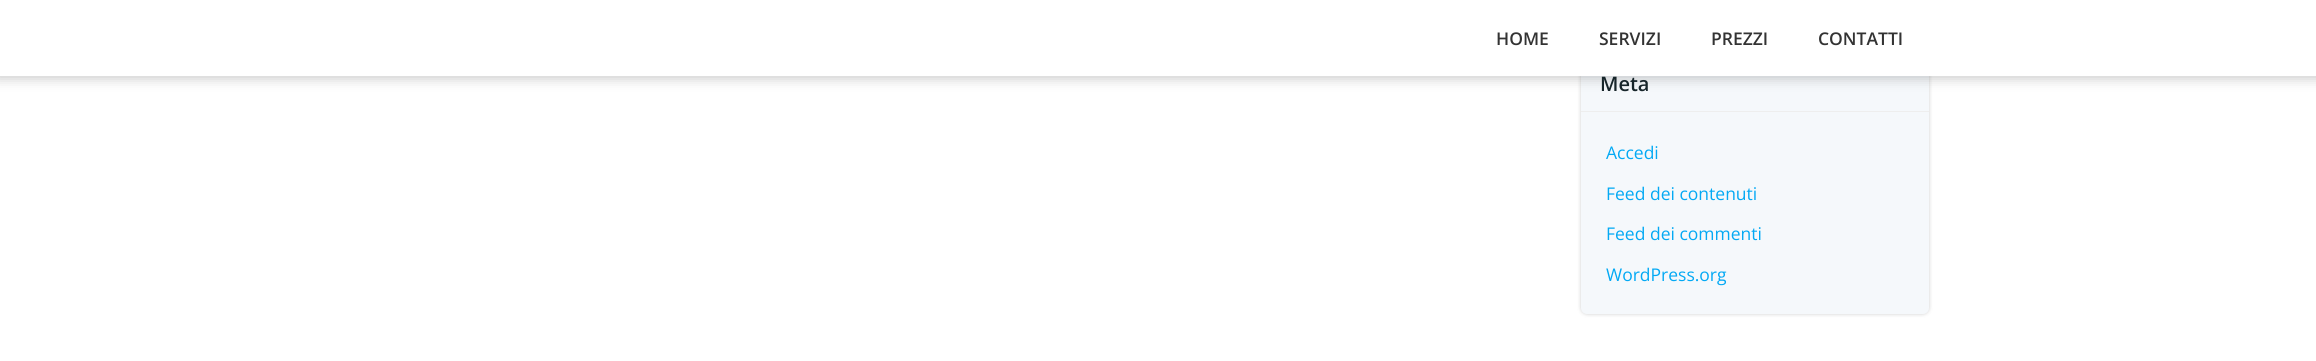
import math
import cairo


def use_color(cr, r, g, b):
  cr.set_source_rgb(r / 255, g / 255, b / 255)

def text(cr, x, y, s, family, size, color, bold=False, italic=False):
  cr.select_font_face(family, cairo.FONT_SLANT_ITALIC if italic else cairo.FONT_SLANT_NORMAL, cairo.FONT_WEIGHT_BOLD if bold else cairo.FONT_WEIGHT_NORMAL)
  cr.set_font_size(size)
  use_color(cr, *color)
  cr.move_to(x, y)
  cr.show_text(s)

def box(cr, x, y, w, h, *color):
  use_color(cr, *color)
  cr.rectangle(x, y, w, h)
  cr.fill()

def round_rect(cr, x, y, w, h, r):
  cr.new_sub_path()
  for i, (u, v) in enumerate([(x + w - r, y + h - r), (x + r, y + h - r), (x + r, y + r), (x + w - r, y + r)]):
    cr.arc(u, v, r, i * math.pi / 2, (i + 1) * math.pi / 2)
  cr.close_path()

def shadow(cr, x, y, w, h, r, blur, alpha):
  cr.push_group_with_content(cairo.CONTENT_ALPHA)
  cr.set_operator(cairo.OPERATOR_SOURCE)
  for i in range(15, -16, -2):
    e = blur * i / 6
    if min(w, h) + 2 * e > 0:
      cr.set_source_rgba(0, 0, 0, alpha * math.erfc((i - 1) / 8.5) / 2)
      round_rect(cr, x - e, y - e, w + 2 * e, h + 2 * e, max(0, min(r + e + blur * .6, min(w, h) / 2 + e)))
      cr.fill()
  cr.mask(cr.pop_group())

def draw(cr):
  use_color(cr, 255, 255, 255)
  cr.paint()
  use_color(cr, 0, 0, 0)
  shadow(cr, 1581, 55, 348, 259, 6, 2, 0.2)
  use_color(cr, 245, 248, 251)
  round_rect(cr, 1581, 55, 348, 259, 6)
  cr.fill()
  use_color(cr, 0, 0, 0)
  shadow(cr, -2, -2, 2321, 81, 0, 6, 0.2)
  box(cr, 0, 0, 2316, 76, 255, 255, 255)
  box(cr, 1581, 111, 348, 1, 238, 238, 238)
  text(cr, 1496, 45, "HOME", "Open Sans SemiBold", 17.5, (51, 51, 51))
  text(cr, 1599, 45, "SERVIZI", "Open Sans SemiBold", 17.5, (51, 51, 51))
  text(cr, 1711, 45, "PREZZI", "Open Sans SemiBold", 17.5, (51, 51, 51))
  text(cr, 1818, 45, "CONTATTI", "Open Sans SemiBold", 17.5, (51, 51, 51))
  text(cr, 1600, 91, "Meta", "Open Sans SemiBold", 20, (23, 37, 42))
  text(cr, 1606, 159, "Accedi", "Open Sans", 17.5, (3, 169, 244))
  text(cr, 1606, 200, "Feed dei contenuti", "Open Sans", 17.5, (3, 169, 244))
  text(cr, 1606, 240, "Feed dei commenti", "Open Sans", 17.5, (3, 169, 244))
  text(cr, 1606, 281, "WordPress.org", "Open Sans", 17.5, (3, 169, 244))


surface = cairo.ImageSurface(cairo.FORMAT_RGB24, 2316, 361)
cr = cairo.Context(surface)
options = cairo.FontOptions()
options.set_hint_metrics(cairo.HINT_METRICS_OFF)
options.set_hint_style(cairo.HINT_STYLE_NONE)
cr.set_font_options(options)
cr.set_miter_limit(4)
draw(cr)
surface.write_to_png("out.png")
